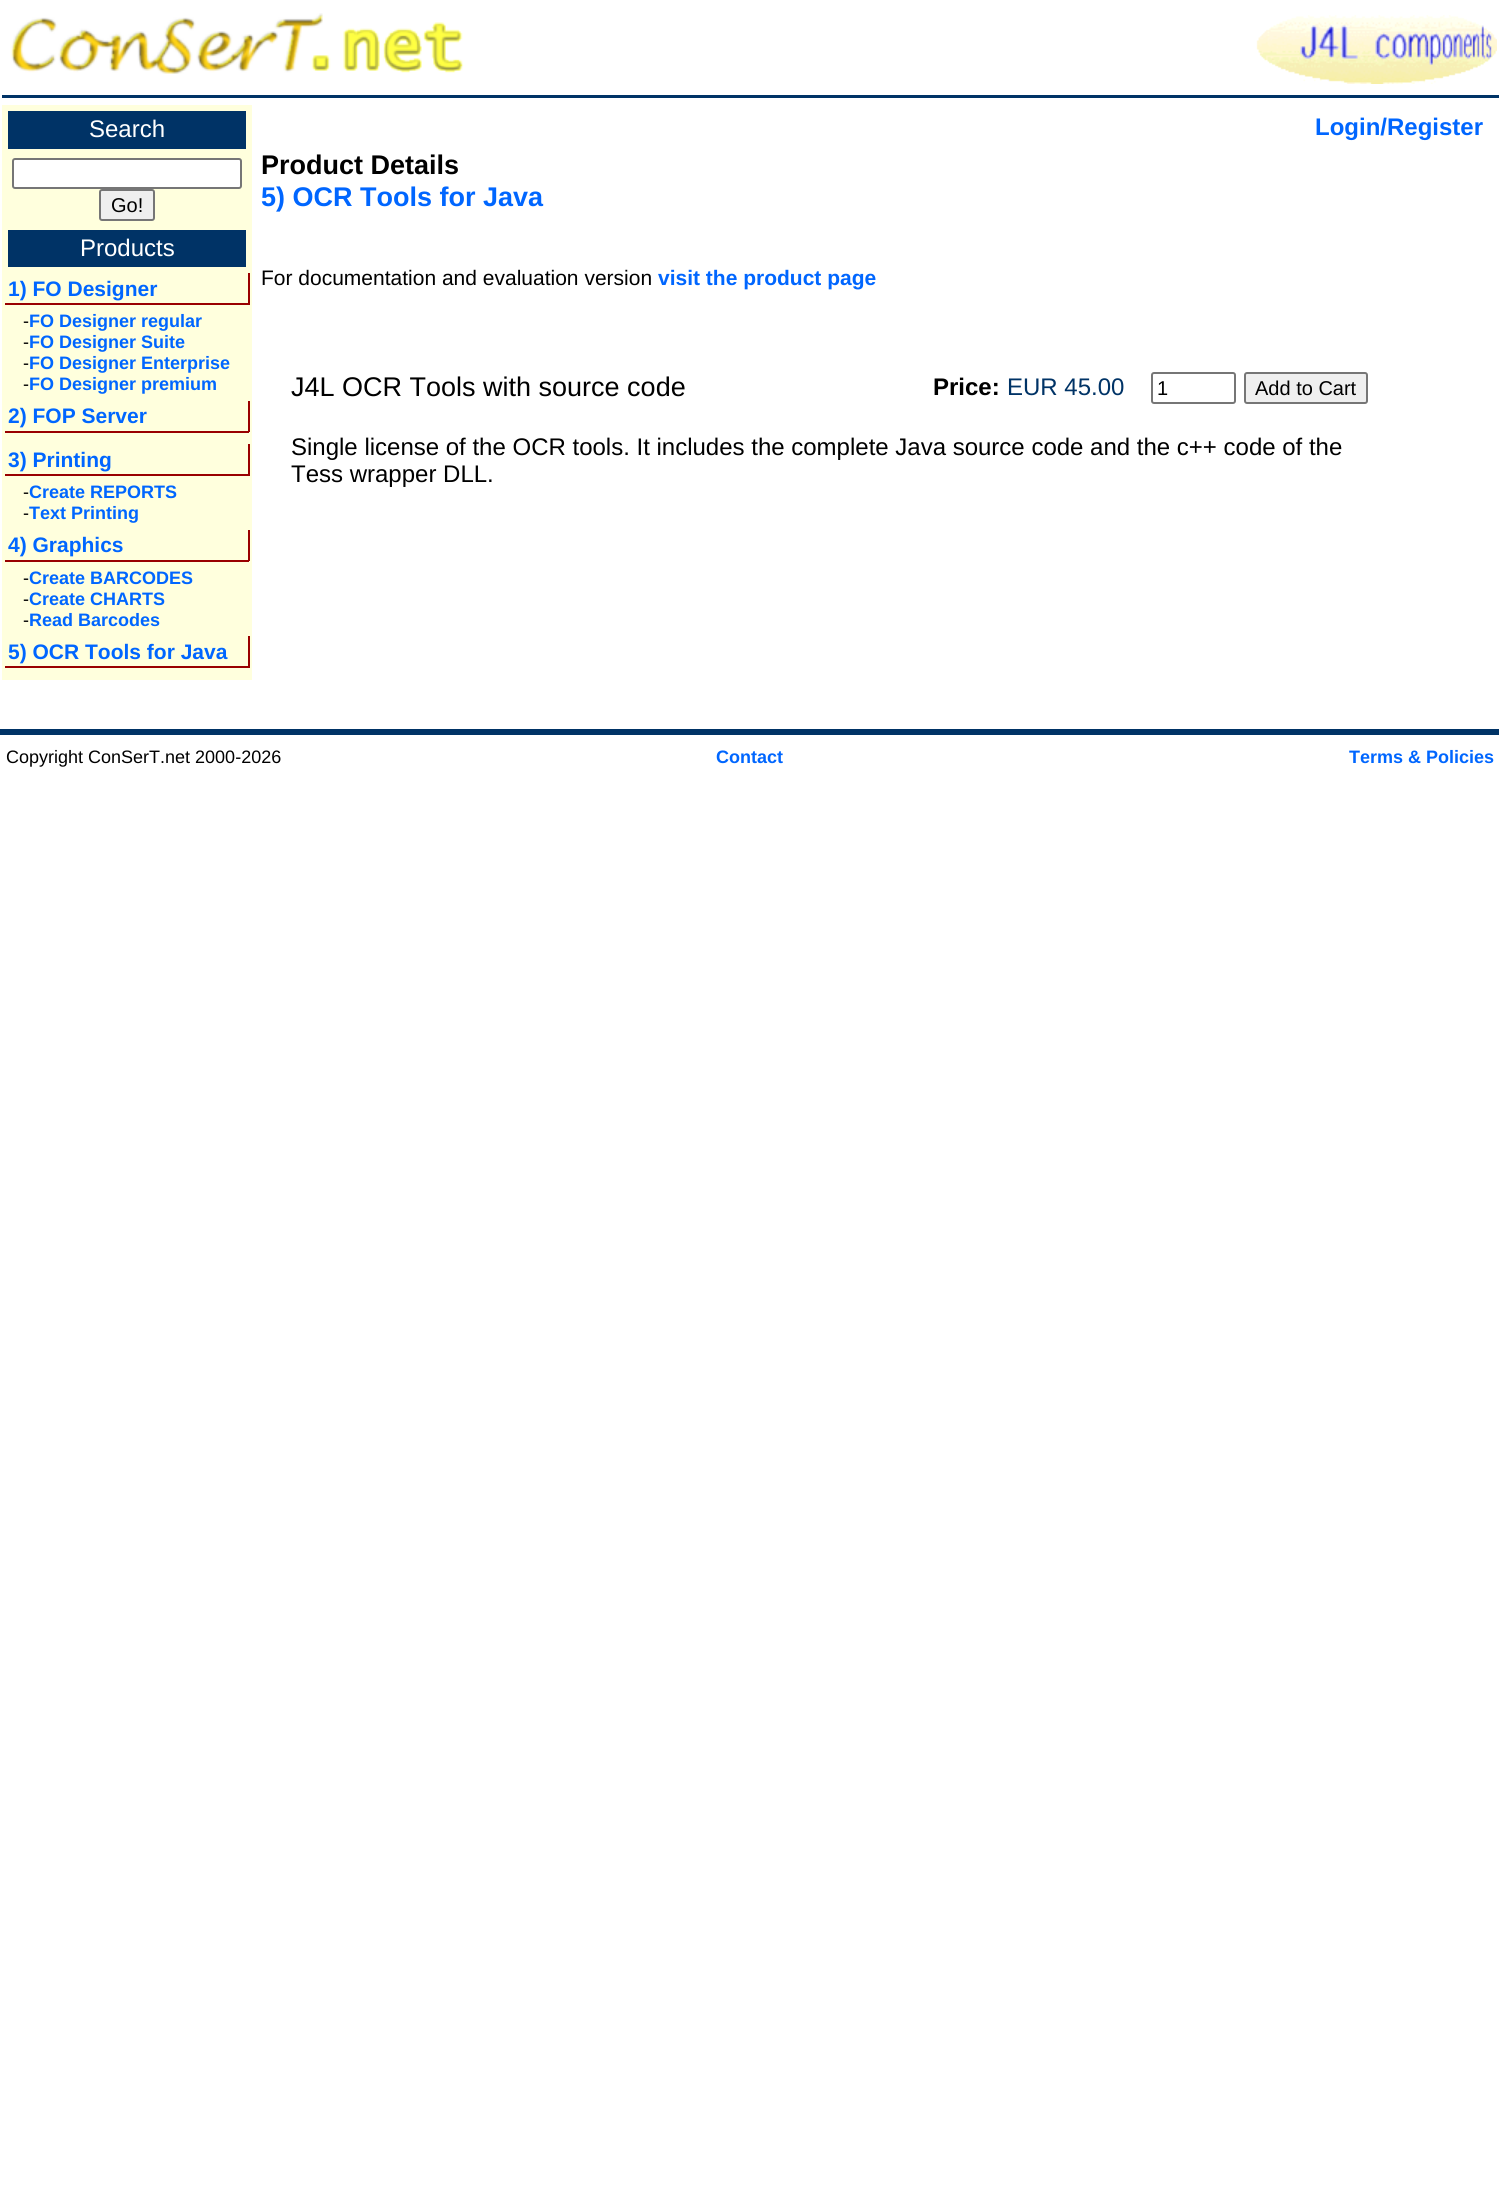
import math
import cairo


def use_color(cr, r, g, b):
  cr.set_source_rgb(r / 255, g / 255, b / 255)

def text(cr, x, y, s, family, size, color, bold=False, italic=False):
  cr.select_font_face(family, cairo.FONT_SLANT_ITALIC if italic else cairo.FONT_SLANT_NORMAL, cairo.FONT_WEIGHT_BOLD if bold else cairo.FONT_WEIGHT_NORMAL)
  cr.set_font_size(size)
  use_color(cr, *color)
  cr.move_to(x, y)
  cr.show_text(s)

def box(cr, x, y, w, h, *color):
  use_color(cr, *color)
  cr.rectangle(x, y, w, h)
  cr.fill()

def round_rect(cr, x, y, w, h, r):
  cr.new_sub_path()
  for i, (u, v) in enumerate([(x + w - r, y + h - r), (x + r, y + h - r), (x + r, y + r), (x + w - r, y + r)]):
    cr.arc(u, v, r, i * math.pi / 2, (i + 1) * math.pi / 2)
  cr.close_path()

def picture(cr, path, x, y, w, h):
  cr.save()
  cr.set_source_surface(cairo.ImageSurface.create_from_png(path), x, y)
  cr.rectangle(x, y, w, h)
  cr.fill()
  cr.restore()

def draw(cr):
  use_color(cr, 255, 255, 255)
  cr.paint()
  picture(cr, "img_01.png", 10, 13, 454, 61)
  picture(cr, "img_02.png", 1256, 15, 241, 69)
  box(cr, 2, 95, 1497, 3, 0, 51, 102)
  box(cr, 2, 105, 250, 575, 255, 255, 221)
  box(cr, 8, 111, 238, 38, 0, 51, 102)
  use_color(cr, 255, 255, 255)
  round_rect(cr, 13, 159, 228, 29, 2)
  cr.fill_preserve()
  use_color(cr, 118, 118, 118)
  cr.stroke()
  use_color(cr, 239, 239, 239)
  round_rect(cr, 100, 190, 54, 30, 2)
  cr.fill_preserve()
  use_color(cr, 118, 118, 118)
  cr.stroke()
  box(cr, 8, 230, 238, 37, 0, 51, 102)
  box(cr, 248, 273, 2, 32, 153, 0, 0)
  box(cr, 5, 303, 244, 2, 153, 0, 0)
  box(cr, 248, 401, 2, 31, 153, 0, 0)
  box(cr, 5, 431, 244, 2, 153, 0, 0)
  box(cr, 248, 444, 2, 32, 153, 0, 0)
  box(cr, 5, 474, 244, 2, 153, 0, 0)
  box(cr, 248, 530, 2, 31, 153, 0, 0)
  box(cr, 5, 560, 244, 2, 153, 0, 0)
  box(cr, 248, 636, 2, 32, 153, 0, 0)
  box(cr, 5, 666, 244, 2, 153, 0, 0)
  round_rect(cr, 1152, 373, 83, 30, 2)
  use_color(cr, 118, 118, 118)
  cr.stroke()
  use_color(cr, 239, 239, 239)
  round_rect(cr, 1245, 373, 122, 30, 2)
  cr.fill_preserve()
  use_color(cr, 118, 118, 118)
  cr.stroke()
  box(cr, 0, 729, 1499, 6, 0, 51, 102)
  text(cr, 89, 137, "Search", "Liberation Sans", 24, (255, 255, 255))
  text(cr, 111, 212, "Go!", "Liberation Sans", 20, (0, 0, 0))
  text(cr, 80, 256, "Products", "Liberation Sans", 24, (255, 255, 255))
  text(cr, 8, 296, "1) FO Designer", "Liberation Sans", 21, (0, 102, 255), bold=True)
  text(cr, 23, 327, "-", "Liberation Sans", 18, (0, 0, 0))
  text(cr, 29, 327, "FO Designer regular", "Liberation Sans", 18, (0, 102, 255), bold=True)
  text(cr, 23, 348, "-", "Liberation Sans", 18, (0, 0, 0))
  text(cr, 29, 348, "FO Designer Suite", "Liberation Sans", 18, (0, 102, 255), bold=True)
  text(cr, 23, 369, "-", "Liberation Sans", 18, (0, 0, 0))
  text(cr, 29, 369, "FO Designer Enterprise", "Liberation Sans", 18, (0, 102, 255), bold=True)
  text(cr, 23, 390, "-", "Liberation Sans", 18, (0, 0, 0))
  text(cr, 29, 390, "FO Designer premium", "Liberation Sans", 18, (0, 102, 255), bold=True)
  text(cr, 8, 423, "2) FOP Server", "Liberation Sans", 21, (0, 102, 255), bold=True)
  text(cr, 8, 467, "3) Printing", "Liberation Sans", 21, (0, 102, 255), bold=True)
  text(cr, 23, 498, "-", "Liberation Sans", 18, (0, 0, 0))
  text(cr, 29, 498, "Create REPORTS", "Liberation Sans", 18, (0, 102, 255), bold=True)
  text(cr, 23, 519, "-", "Liberation Sans", 18, (0, 0, 0))
  text(cr, 29, 519, "Text Printing", "Liberation Sans", 18, (0, 102, 255), bold=True)
  text(cr, 8, 552, "4) Graphics", "Liberation Sans", 21, (0, 102, 255), bold=True)
  text(cr, 23, 584, "-", "Liberation Sans", 18, (0, 0, 0))
  text(cr, 29, 584, "Create BARCODES", "Liberation Sans", 18, (0, 102, 255), bold=True)
  text(cr, 23, 605, "-", "Liberation Sans", 18, (0, 0, 0))
  text(cr, 29, 605, "Create CHARTS", "Liberation Sans", 18, (0, 102, 255), bold=True)
  text(cr, 23, 626, "-", "Liberation Sans", 18, (0, 0, 0))
  text(cr, 29, 626, "Read Barcodes", "Liberation Sans", 18, (0, 102, 255), bold=True)
  text(cr, 8, 659, "5) OCR Tools for Java", "Liberation Sans", 21, (0, 102, 255), bold=True)
  text(cr, 1315, 135, "Login/Register", "Liberation Sans", 24, (0, 102, 255), bold=True)
  text(cr, 261, 174, "Product Details", "Liberation Sans", 27, (0, 0, 0), bold=True)
  text(cr, 261, 206, "5) OCR Tools for Java", "Liberation Sans", 27, (0, 102, 255), bold=True)
  text(cr, 261, 285, "For documentation and evaluation version", "Liberation Sans", 21, (0, 0, 0))
  text(cr, 658, 285, "visit the product page", "Liberation Sans", 21, (0, 102, 255), bold=True)
  text(cr, 291, 396, "J4L OCR Tools with source code", "Liberation Sans", 27, (0, 0, 0))
  text(cr, 933, 395, "Price:", "Liberation Sans", 24, (0, 0, 0), bold=True)
  text(cr, 1007, 395, "EUR 45.00", "Liberation Sans", 24, (0, 51, 102))
  text(cr, 1157, 395, "1", "Liberation Sans", 20, (0, 0, 0))
  text(cr, 1255, 395, "Add to Cart", "Liberation Sans", 20, (0, 0, 0))
  text(cr, 291, 455, "Single license of the OCR tools. It includes the complete Java source code and the c++ code of the", "Liberation Sans", 24, (0, 0, 0))
  text(cr, 291, 482, "Tess wrapper DLL.", "Liberation Sans", 24, (0, 0, 0))
  text(cr, 6, 763, "Copyright ConSerT.net 2000-2026", "Liberation Sans", 18, (0, 0, 0))
  text(cr, 716, 763, "Contact", "Liberation Sans", 18, (0, 102, 255), bold=True)
  text(cr, 1349, 763, "Terms & Policies", "Liberation Sans", 18, (0, 102, 255), bold=True)


surface = cairo.ImageSurface(cairo.FORMAT_RGB24, 1499, 2196)
cr = cairo.Context(surface)
options = cairo.FontOptions()
options.set_hint_metrics(cairo.HINT_METRICS_OFF)
options.set_hint_style(cairo.HINT_STYLE_NONE)
cr.set_font_options(options)
cr.set_miter_limit(4)
draw(cr)
surface.write_to_png("out.png")
